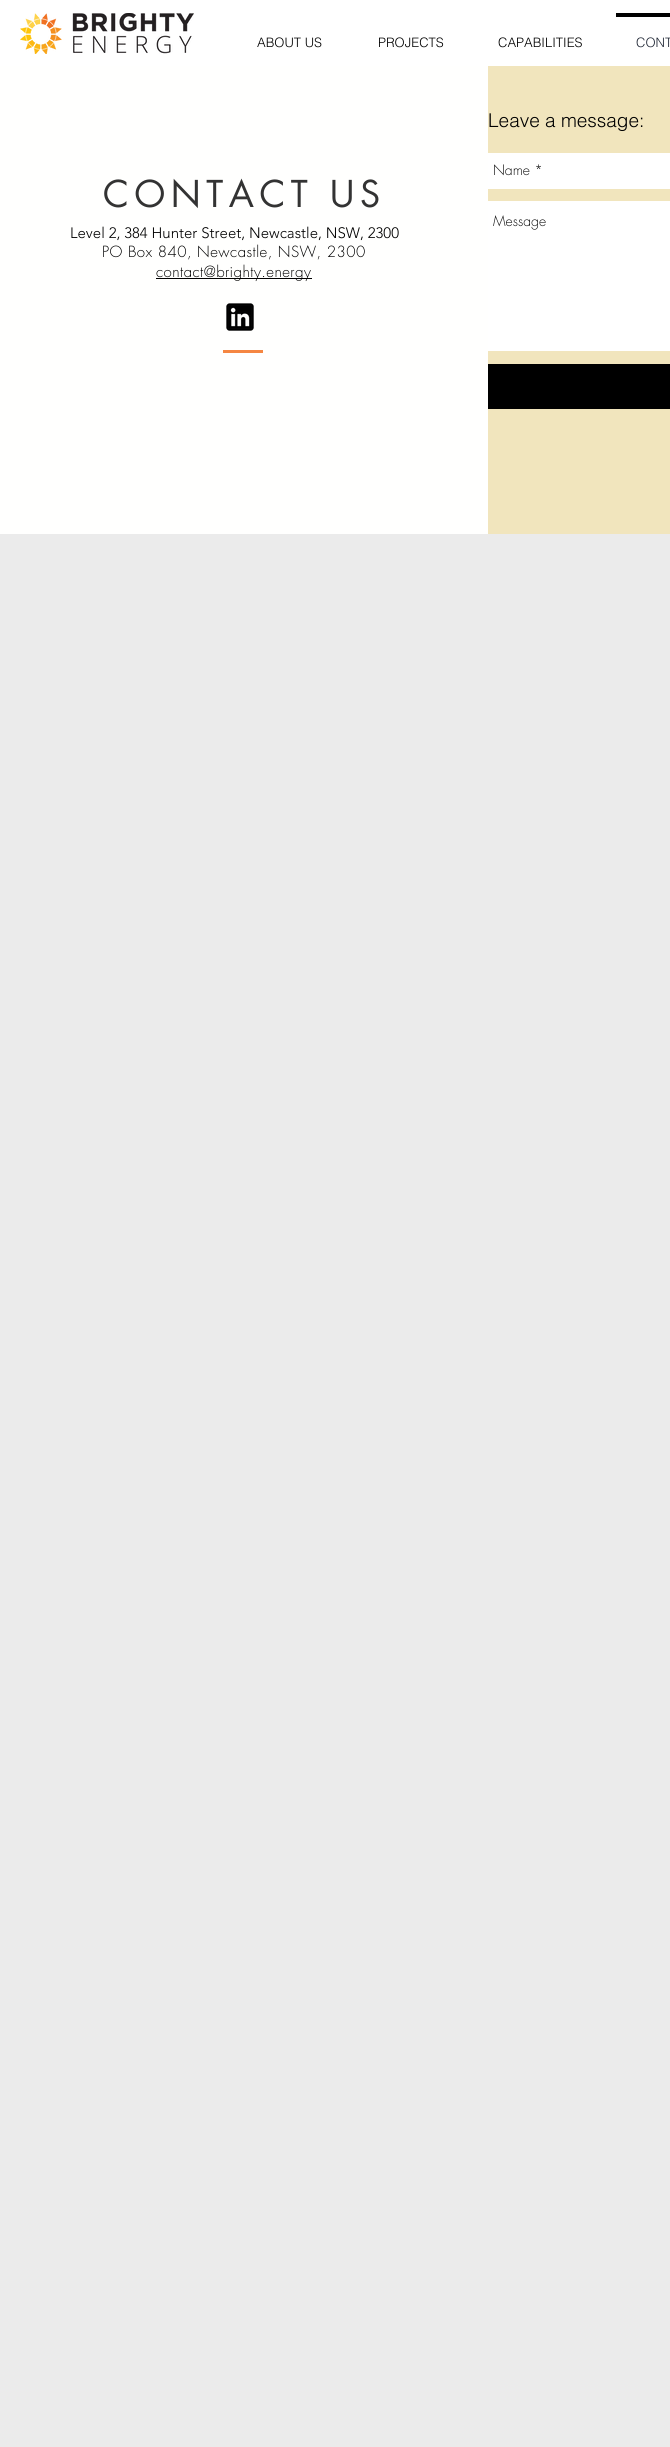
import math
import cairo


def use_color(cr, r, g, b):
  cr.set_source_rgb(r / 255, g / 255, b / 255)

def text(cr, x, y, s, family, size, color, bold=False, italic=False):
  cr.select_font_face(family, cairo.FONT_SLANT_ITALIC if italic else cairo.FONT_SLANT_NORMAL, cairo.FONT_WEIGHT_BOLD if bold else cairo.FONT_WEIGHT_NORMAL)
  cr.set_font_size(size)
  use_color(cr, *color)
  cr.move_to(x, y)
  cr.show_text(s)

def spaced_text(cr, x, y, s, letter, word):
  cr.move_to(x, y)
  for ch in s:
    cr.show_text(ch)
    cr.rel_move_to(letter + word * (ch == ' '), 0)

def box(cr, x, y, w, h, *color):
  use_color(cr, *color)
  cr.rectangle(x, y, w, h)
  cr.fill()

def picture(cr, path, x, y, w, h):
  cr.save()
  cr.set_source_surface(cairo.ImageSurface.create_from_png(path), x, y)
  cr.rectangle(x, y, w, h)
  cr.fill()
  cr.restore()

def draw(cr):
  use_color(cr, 235, 235, 235)
  cr.paint()
  box(cr, 0, 0, 670, 66, 255, 255, 255)
  picture(cr, "img_01.png", 20, 13, 174, 41)
  box(cr, 616, 13, 54, 4, 0, 0, 0)
  box(cr, 0, 66, 488, 468, 255, 255, 254)
  box(cr, 156, 278, 156, 1, 0, 0, 0)
  picture(cr, "img_02.png", 226, 303, 28, 28)
  box(cr, 223, 350, 40, 3, 245, 134, 66)
  box(cr, 488, 66, 182, 468, 241, 229, 189)
  box(cr, 488, 153, 182, 36, 255, 255, 255)
  box(cr, 488, 201, 182, 150, 255, 255, 255)
  box(cr, 488, 364, 182, 45, 0, 0, 0)
  text(cr, 257, 47, "ABOUT US", "helvetica Light", 13, (0, 0, 0))
  text(cr, 378, 47, "PROJECTS", "helvetica Light", 13, (0, 0, 0))
  text(cr, 498, 47, "CAPABILITIES", "helvetica Light", 13, (0, 0, 0))
  text(cr, 636, 47, "CONT", "helvetica Light", 13, (31, 38, 52))
  cr.select_font_face("futura")
  cr.set_font_size(36)
  use_color(cr, 51, 51, 51)
  spaced_text(cr, 103, 207, "CONTACT US", 5.5, 0)
  text(cr, 70, 238, "Level 2, 384 Hunter Street, Newcastle, NSW, 2300", "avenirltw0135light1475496 Light", 15, (0, 0, 0))
  cr.select_font_face("futura Light")
  spaced_text(cr, 102, 257, "PO Box 840, Newcastle, NSW, 2300", 0.45, 0)
  spaced_text(cr, 156, 277, "contact@brighty.energy", 0.45, 0)
  text(cr, 488, 127, "Leave a message:", "helvetica Light", 19, (0, 0, 0))
  text(cr, 493, 175, "Name *", "futura Light", 14, (15, 15, 15))
  text(cr, 493, 226, "Message", "futura Light", 14, (15, 15, 15))


surface = cairo.ImageSurface(cairo.FORMAT_RGB24, 670, 2447)
cr = cairo.Context(surface)
options = cairo.FontOptions()
options.set_hint_metrics(cairo.HINT_METRICS_OFF)
options.set_hint_style(cairo.HINT_STYLE_NONE)
cr.set_font_options(options)
cr.set_miter_limit(4)
draw(cr)
surface.write_to_png("out.png")
